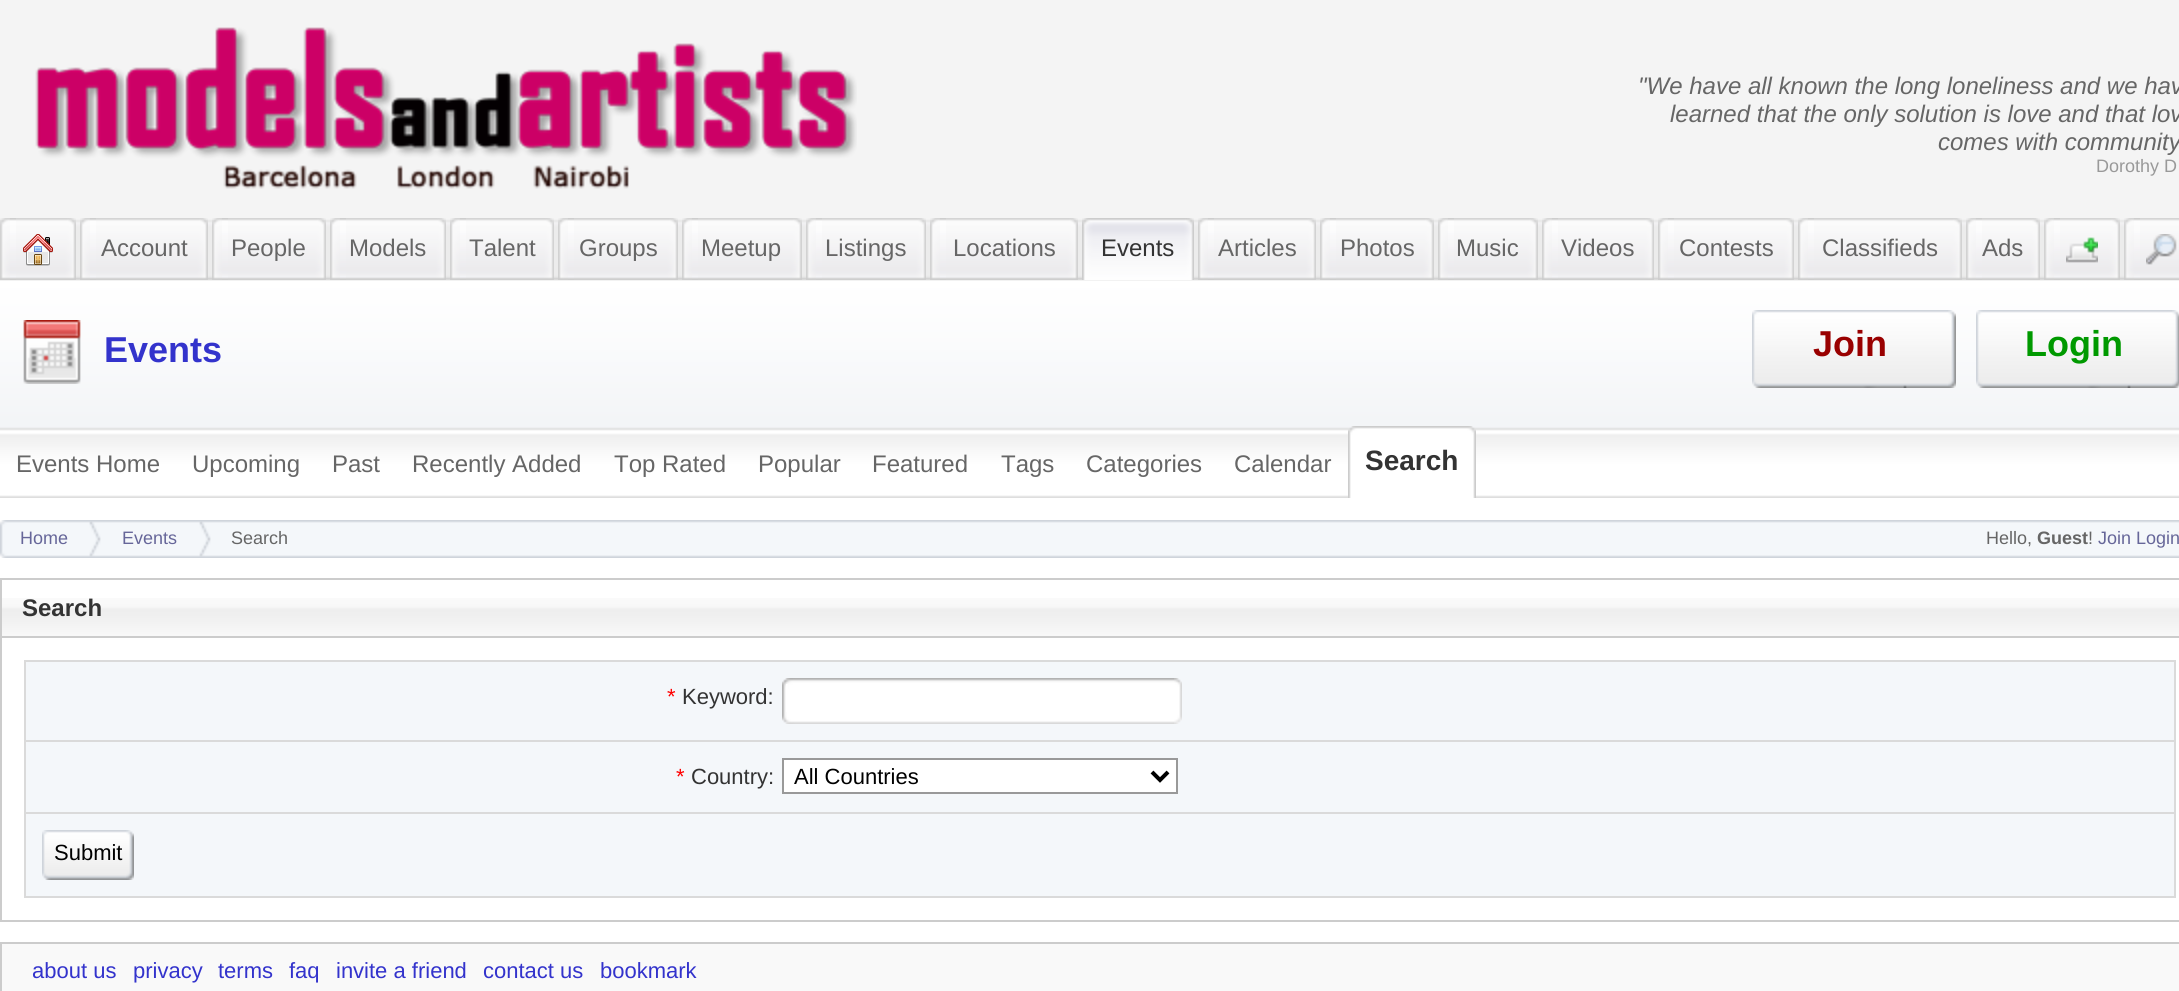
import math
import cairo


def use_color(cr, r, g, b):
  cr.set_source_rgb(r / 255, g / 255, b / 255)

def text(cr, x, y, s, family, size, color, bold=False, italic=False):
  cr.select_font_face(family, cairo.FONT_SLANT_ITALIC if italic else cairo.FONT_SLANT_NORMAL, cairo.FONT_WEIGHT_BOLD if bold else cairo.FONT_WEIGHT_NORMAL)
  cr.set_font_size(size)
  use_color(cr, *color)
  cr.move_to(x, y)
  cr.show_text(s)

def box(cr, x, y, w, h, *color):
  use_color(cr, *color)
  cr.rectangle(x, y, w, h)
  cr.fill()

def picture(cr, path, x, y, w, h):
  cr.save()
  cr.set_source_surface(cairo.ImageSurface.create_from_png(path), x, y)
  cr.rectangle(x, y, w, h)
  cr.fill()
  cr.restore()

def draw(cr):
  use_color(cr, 255, 255, 255)
  cr.paint()
  box(cr, 0, 0, 2179, 218, 244, 244, 244)
  picture(cr, "img_01.png", 35, 27, 822, 162)
  picture(cr, "img_02.png", 0, 218, 2179, 280)
  picture(cr, "img_03.png", 0, 218, 16, 62)
  picture(cr, "img_04.png", 10, 218, 66, 62)
  picture(cr, "img_05.png", 23, 234, 30, 32)
  picture(cr, "img_03.png", 80, 218, 16, 62)
  picture(cr, "img_06.png", 90, 218, 118, 62)
  picture(cr, "img_03.png", 212, 218, 16, 62)
  picture(cr, "img_07.png", 222, 218, 104, 62)
  picture(cr, "img_03.png", 330, 218, 16, 62)
  picture(cr, "img_08.png", 340, 218, 106, 62)
  picture(cr, "img_03.png", 450, 218, 16, 62)
  picture(cr, "img_09.png", 460, 218, 94, 62)
  picture(cr, "img_03.png", 558, 218, 16, 62)
  picture(cr, "img_10.png", 568, 218, 110, 62)
  picture(cr, "img_03.png", 682, 218, 16, 62)
  picture(cr, "img_10.png", 692, 218, 110, 62)
  picture(cr, "img_03.png", 806, 218, 16, 62)
  picture(cr, "img_11.png", 816, 218, 110, 62)
  picture(cr, "img_03.png", 930, 218, 16, 62)
  picture(cr, "img_12.png", 940, 218, 138, 62)
  picture(cr, "img_13.png", 1082, 218, 16, 62)
  picture(cr, "img_14.png", 1098, 218, 96, 62)
  picture(cr, "img_03.png", 1198, 218, 16, 62)
  picture(cr, "img_15.png", 1208, 218, 108, 62)
  picture(cr, "img_03.png", 1320, 218, 16, 62)
  picture(cr, "img_07.png", 1330, 218, 104, 62)
  picture(cr, "img_03.png", 1438, 218, 16, 62)
  picture(cr, "img_16.png", 1448, 218, 90, 62)
  picture(cr, "img_03.png", 1542, 218, 16, 62)
  picture(cr, "img_17.png", 1552, 218, 102, 62)
  picture(cr, "img_03.png", 1658, 218, 16, 62)
  picture(cr, "img_18.png", 1668, 218, 126, 62)
  picture(cr, "img_03.png", 1798, 218, 16, 62)
  picture(cr, "img_19.png", 1808, 218, 154, 62)
  picture(cr, "img_03.png", 1966, 218, 16, 62)
  picture(cr, "img_20.png", 1976, 218, 64, 62)
  picture(cr, "img_03.png", 2044, 218, 16, 62)
  picture(cr, "img_04.png", 2054, 218, 66, 62)
  picture(cr, "img_21.png", 2066, 237, 32, 26)
  picture(cr, "img_03.png", 2124, 218, 16, 62)
  picture(cr, "img_22.png", 2134, 218, 45, 62)
  picture(cr, "img_23.png", 2146, 234, 31, 31)
  picture(cr, "img_24.png", 23, 320, 58, 64)
  picture(cr, "img_25.png", 1752, 310, 196, 78)
  picture(cr, "img_26.png", 1948, 310, 8, 78)
  picture(cr, "img_25.png", 1976, 310, 196, 78)
  picture(cr, "img_27.png", 2172, 310, 7, 78)
  picture(cr, "img_28.png", 1348, 426, 18, 72)
  picture(cr, "img_29.png", 1366, 426, 92, 72)
  picture(cr, "img_30.png", 1458, 426, 18, 72)
  picture(cr, "img_31.png", 20, 520, 2159, 38)
  picture(cr, "img_32.png", 0, 520, 20, 38)
  picture(cr, "img_33.png", 89, 521, 12, 36)
  picture(cr, "img_33.png", 199, 521, 12, 36)
  picture(cr, "img_34.png", 2, 598, 2177, 38)
  cr.rectangle(1, 579, 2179, 342)
  use_color(cr, 204, 204, 204)
  cr.stroke()
  box(cr, 2, 636, 2177, 2, 204, 204, 204)
  box(cr, 24, 660, 2152, 2, 218, 218, 218)
  box(cr, 2174, 660, 2, 238, 218, 218, 218)
  box(cr, 24, 660, 2, 238, 218, 218, 218)
  box(cr, 26, 662, 2148, 78, 244, 247, 250)
  box(cr, 26, 740, 2148, 2, 218, 218, 218)
  picture(cr, "img_35.png", 782, 678, 392, 46)
  box(cr, 786, 684, 2, 28, 255, 255, 255)
  picture(cr, "img_36.png", 1174, 678, 8, 46)
  box(cr, 26, 742, 2148, 70, 244, 247, 250)
  box(cr, 26, 812, 2148, 2, 218, 218, 218)
  use_color(cr, 255, 255, 255)
  cr.rectangle(783, 759, 394, 34)
  cr.fill_preserve()
  use_color(cr, 153, 153, 153)
  cr.stroke()
  cr.new_path()
  cr.move_to(1152, 772)
  cr.line_to(1160, 780)
  cr.line_to(1168, 772)
  use_color(cr, 0, 0, 0)
  cr.set_line_width(4)
  cr.stroke()
  box(cr, 26, 814, 2148, 82, 244, 247, 250)
  box(cr, 26, 896, 2148, 2, 218, 218, 218)
  picture(cr, "img_37.png", 42, 830, 84, 50)
  picture(cr, "img_38.png", 126, 830, 8, 50)
  use_color(cr, 249, 249, 249)
  cr.rectangle(1, 943, 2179, 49)
  cr.fill_preserve()
  use_color(cr, 204, 204, 204)
  cr.set_line_width(2)
  cr.stroke()
  text(cr, 1638, 94, "\"We have all known the long loneliness and we hav", "Liberation Sans", 24, (102, 102, 102), italic=True)
  text(cr, 1670, 122, "learned that the only solution is love and that lov", "Liberation Sans", 24, (102, 102, 102), italic=True)
  text(cr, 1938, 150, "comes with community", "Liberation Sans", 24, (102, 102, 102), italic=True)
  text(cr, 2096, 172, "Dorothy D", "Liberation Sans", 18, (153, 153, 153))
  text(cr, 101, 256, "Account", "Liberation Sans", 24, (102, 102, 102))
  text(cr, 231, 256, "People", "Liberation Sans", 24, (102, 102, 102))
  text(cr, 349, 256, "Models", "Liberation Sans", 24, (102, 102, 102))
  text(cr, 469, 256, "Talent", "Liberation Sans", 24, (102, 102, 102))
  text(cr, 579, 256, "Groups", "Liberation Sans", 24, (102, 102, 102))
  text(cr, 701, 256, "Meetup", "Liberation Sans", 24, (102, 102, 102))
  text(cr, 825, 256, "Listings", "Liberation Sans", 24, (102, 102, 102))
  text(cr, 953, 256, "Locations", "Liberation Sans", 24, (102, 102, 102))
  text(cr, 1101, 256, "Events", "Liberation Sans", 24, (51, 51, 51))
  text(cr, 1218, 256, "Articles", "Liberation Sans", 24, (102, 102, 102))
  text(cr, 1340, 256, "Photos", "Liberation Sans", 24, (102, 102, 102))
  text(cr, 1456, 256, "Music", "Liberation Sans", 24, (102, 102, 102))
  text(cr, 1561, 256, "Videos", "Liberation Sans", 24, (102, 102, 102))
  text(cr, 1679, 256, "Contests", "Liberation Sans", 24, (102, 102, 102))
  text(cr, 1822, 256, "Classifieds", "Liberation Sans", 24, (102, 102, 102))
  text(cr, 1982, 256, "Ads", "Liberation Sans", 24, (102, 102, 102))
  text(cr, 104, 362, "Events", "Liberation Sans", 36, (51, 51, 204), bold=True)
  text(cr, 1813, 356, "Join", "Liberation Sans", 36, (153, 0, 0), bold=True)
  text(cr, 2025, 356, "Login", "Liberation Sans", 36, (0, 153, 0), bold=True)
  text(cr, 16, 472, "Events Home", "Liberation Sans", 24, (102, 102, 102))
  text(cr, 192, 472, "Upcoming", "Liberation Sans", 24, (102, 102, 102))
  text(cr, 332, 472, "Past", "Liberation Sans", 24, (102, 102, 102))
  text(cr, 412, 472, "Recently Added", "Liberation Sans", 24, (102, 102, 102))
  text(cr, 614, 472, "Top Rated", "Liberation Sans", 24, (102, 102, 102))
  text(cr, 758, 472, "Popular", "Liberation Sans", 24, (102, 102, 102))
  text(cr, 872, 472, "Featured", "Liberation Sans", 24, (102, 102, 102))
  text(cr, 1001, 472, "Tags", "Liberation Sans", 24, (102, 102, 102))
  text(cr, 1086, 472, "Categories", "Liberation Sans", 24, (102, 102, 102))
  text(cr, 1234, 472, "Calendar", "Liberation Sans", 24, (102, 102, 102))
  text(cr, 1365, 470, "Search", "Liberation Sans", 28, (51, 51, 51), bold=True)
  text(cr, 20, 544, "Home", "Liberation Sans", 18, (102, 102, 153))
  text(cr, 122, 544, "Events", "Liberation Sans", 18, (102, 102, 153))
  text(cr, 231, 544, "Search", "Liberation Sans", 18, (102, 102, 102))
  text(cr, 1986, 544, "Hello,", "Liberation Sans", 18, (102, 102, 102))
  text(cr, 2037, 544, "Guest", "Liberation Sans", 18, (102, 102, 102), bold=True)
  text(cr, 2088, 544, "!", "Liberation Sans", 18, (102, 102, 102))
  text(cr, 2098, 544, "Join Login", "Liberation Sans", 18, (102, 102, 153))
  text(cr, 22, 616, "Search", "Liberation Sans", 24, (51, 51, 51), bold=True)
  text(cr, 667, 704, "*", "Liberation Sans", 22, (255, 0, 0))
  text(cr, 682, 704, "Keyword:", "Liberation Sans", 22, (51, 51, 51))
  text(cr, 676, 784, "*", "Liberation Sans", 22, (255, 0, 0))
  text(cr, 691, 784, "Country:", "Liberation Sans", 22, (51, 51, 51))
  text(cr, 794, 784, "All Countries", "Liberation Sans", 22, (0, 0, 0))
  text(cr, 54, 860, "Submit", "Liberation Sans", 22, (0, 0, 0))
  text(cr, 32, 978, "about us", "Liberation Sans", 22, (51, 51, 204))
  text(cr, 133, 978, "privacy", "Liberation Sans", 22, (51, 51, 204))
  text(cr, 218, 978, "terms", "Liberation Sans", 22, (51, 51, 204))
  text(cr, 289, 978, "faq", "Liberation Sans", 22, (51, 51, 204))
  text(cr, 336, 978, "invite a friend", "Liberation Sans", 22, (51, 51, 204))
  text(cr, 483, 978, "contact us", "Liberation Sans", 22, (51, 51, 204))
  text(cr, 600, 978, "bookmark", "Liberation Sans", 22, (51, 51, 204))


surface = cairo.ImageSurface(cairo.FORMAT_RGB24, 2179, 991)
cr = cairo.Context(surface)
options = cairo.FontOptions()
options.set_hint_metrics(cairo.HINT_METRICS_OFF)
options.set_hint_style(cairo.HINT_STYLE_NONE)
cr.set_font_options(options)
cr.set_miter_limit(4)
draw(cr)
surface.write_to_png("out.png")
